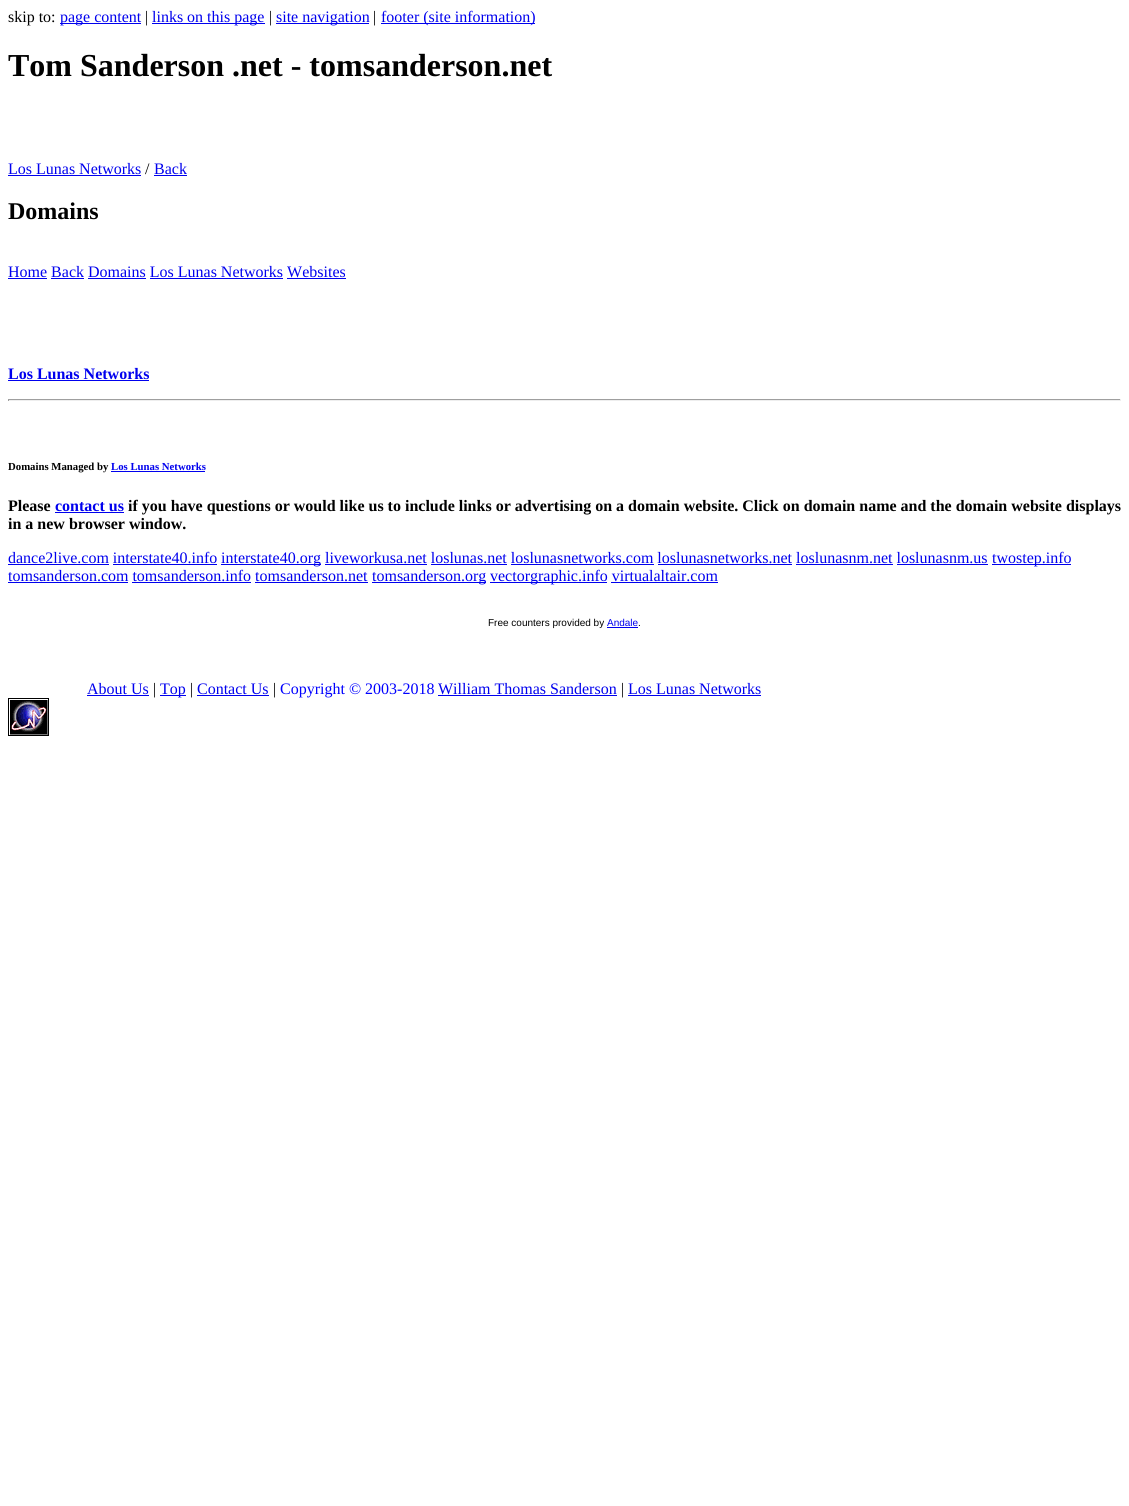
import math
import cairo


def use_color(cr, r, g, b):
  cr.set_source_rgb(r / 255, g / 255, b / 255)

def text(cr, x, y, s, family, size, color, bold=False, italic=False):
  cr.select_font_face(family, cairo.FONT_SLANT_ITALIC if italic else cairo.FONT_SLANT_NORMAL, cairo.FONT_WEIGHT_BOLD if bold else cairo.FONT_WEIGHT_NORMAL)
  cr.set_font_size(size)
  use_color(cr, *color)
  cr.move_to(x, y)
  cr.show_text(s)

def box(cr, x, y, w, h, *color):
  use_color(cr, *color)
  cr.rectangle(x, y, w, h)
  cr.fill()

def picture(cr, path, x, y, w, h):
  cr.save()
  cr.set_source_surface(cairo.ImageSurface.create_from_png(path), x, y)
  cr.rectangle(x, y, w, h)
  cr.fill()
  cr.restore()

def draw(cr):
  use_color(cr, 255, 255, 255)
  cr.paint()
  box(cr, 60, 23, 81, 1, 0, 0, 238)
  box(cr, 152, 23, 113, 1, 0, 0, 238)
  box(cr, 276, 23, 93, 1, 0, 0, 238)
  box(cr, 381, 23, 154, 1, 0, 0, 238)
  box(cr, 8, 175, 133, 1, 0, 0, 238)
  box(cr, 154, 175, 33, 1, 0, 0, 238)
  box(cr, 8, 278, 39, 1, 0, 0, 238)
  box(cr, 51, 278, 33, 1, 0, 0, 238)
  box(cr, 88, 278, 58, 1, 0, 0, 238)
  box(cr, 150, 278, 133, 1, 0, 0, 238)
  box(cr, 287, 278, 59, 1, 0, 0, 238)
  box(cr, 8, 380, 141, 1, 0, 0, 238)
  box(cr, 8, 399, 1113, 1, 159, 159, 159)
  box(cr, 1120, 399, 1, 2, 238, 238, 238)
  box(cr, 8, 400, 1113, 1, 238, 238, 238)
  box(cr, 8, 399, 1, 2, 159, 159, 159)
  box(cr, 111, 471, 94, 1, 0, 0, 238)
  box(cr, 55, 512, 69, 1, 0, 0, 238)
  box(cr, 8, 564, 101, 1, 0, 0, 238)
  box(cr, 221, 564, 100, 1, 0, 0, 238)
  box(cr, 992, 564, 79, 1, 0, 0, 238)
  box(cr, 113, 564, 104, 1, 0, 0, 238)
  box(cr, 325, 564, 102, 1, 0, 0, 238)
  box(cr, 431, 564, 76, 1, 0, 0, 238)
  box(cr, 511, 564, 143, 1, 0, 0, 238)
  box(cr, 658, 564, 134, 1, 0, 0, 238)
  box(cr, 796, 564, 97, 1, 0, 0, 238)
  box(cr, 897, 564, 91, 1, 0, 0, 238)
  box(cr, 8, 582, 120, 1, 0, 0, 238)
  box(cr, 372, 582, 114, 1, 0, 0, 238)
  box(cr, 490, 582, 117, 1, 0, 0, 238)
  box(cr, 132, 582, 119, 1, 0, 0, 238)
  box(cr, 255, 582, 113, 1, 0, 0, 238)
  box(cr, 611, 582, 107, 1, 0, 0, 238)
  box(cr, 607, 627, 31, 1, 0, 0, 238)
  box(cr, 87, 695, 62, 1, 0, 0, 238)
  box(cr, 160, 695, 26, 1, 0, 0, 238)
  box(cr, 197, 695, 72, 1, 0, 0, 238)
  box(cr, 438, 695, 179, 1, 0, 0, 238)
  box(cr, 628, 695, 133, 1, 0, 0, 238)
  picture(cr, "img_01.png", 8, 698, 41, 38)
  text(cr, 8, 22, "skip to:", "Liberation Serif", 16, (0, 0, 0))
  text(cr, 60, 22, "page content", "Liberation Serif", 16, (0, 0, 238))
  text(cr, 145, 22, "|", "Liberation Serif", 16, (0, 0, 0))
  text(cr, 152, 22, "links on this page", "Liberation Serif", 16, (0, 0, 238))
  text(cr, 269, 22, "|", "Liberation Serif", 16, (0, 0, 0))
  text(cr, 276, 22, "site navigation", "Liberation Serif", 16, (0, 0, 238))
  text(cr, 373, 22, "|", "Liberation Serif", 16, (0, 0, 0))
  text(cr, 381, 22, "footer (site information)", "Liberation Serif", 16, (0, 0, 238))
  text(cr, 8, 76, "Tom Sanderson .net - tomsanderson.net", "Liberation Serif", 32, (0, 0, 0), bold=True)
  text(cr, 8, 174, "Los Lunas Networks", "Liberation Serif", 16, (0, 0, 238))
  text(cr, 145, 174, "/", "Liberation Serif", 16, (0, 0, 0))
  text(cr, 154, 174, "Back", "Liberation Serif", 16, (0, 0, 238))
  text(cr, 8, 219, "Domains", "Liberation Serif", 24, (0, 0, 0), bold=True)
  text(cr, 8, 277, "Home Back Domains Los Lunas Networks Websites", "Liberation Serif", 16, (0, 0, 238))
  text(cr, 8, 379, "Los Lunas Networks", "Liberation Serif", 16, (0, 0, 238), bold=True)
  text(cr, 8, 470, "Domains Managed by", "Liberation Serif", 10.75, (0, 0, 0), bold=True)
  text(cr, 111, 470, "Los Lunas Networks", "Liberation Serif", 10.75, (0, 0, 238), bold=True)
  text(cr, 8, 511, "Please", "Liberation Serif", 16, (0, 0, 0), bold=True)
  text(cr, 55, 511, "contact us", "Liberation Serif", 16, (0, 0, 238), bold=True)
  text(cr, 128, 511, "if you have questions or would like us to include links or advertising on a domain website. Click on domain name and the domain website displays", "Liberation Serif", 16, (0, 0, 0), bold=True)
  text(cr, 8, 529, "in a new browser window.", "Liberation Serif", 16, (0, 0, 0), bold=True)
  text(cr, 8, 563, "dance2live.com interstate40.info", "Liberation Serif", 16, (0, 0, 238))
  text(cr, 221, 563, "interstate40.org liveworkusa.net loslunas.net loslunasnetworks.com loslunasnetworks.net loslunasnm.net loslunasnm.us", "Liberation Serif", 16, (0, 0, 238))
  text(cr, 992, 563, "twostep.info", "Liberation Serif", 16, (0, 0, 238))
  text(cr, 8, 581, "tomsanderson.com tomsanderson.info tomsanderson.net", "Liberation Serif", 16, (0, 0, 238))
  text(cr, 372, 581, "tomsanderson.org", "Liberation Serif", 16, (0, 0, 238))
  text(cr, 490, 581, "vectorgraphic.info virtualaltair.com", "Liberation Serif", 16, (0, 0, 238))
  text(cr, 488, 626, "Free counters provided by", "Liberation Sans", 10, (0, 0, 0))
  text(cr, 607, 626, "Andale", "Liberation Sans", 10, (0, 0, 238))
  text(cr, 638, 626, ".", "Liberation Sans", 10, (0, 0, 0))
  text(cr, 87, 694, "About Us", "Liberation Serif", 16, (0, 0, 238))
  text(cr, 153, 694, "|", "Liberation Serif", 16, (0, 0, 0))
  text(cr, 160, 694, "Top", "Liberation Serif", 16, (0, 0, 238))
  text(cr, 190, 694, "|", "Liberation Serif", 16, (0, 0, 0))
  text(cr, 197, 694, "Contact Us", "Liberation Serif", 16, (0, 0, 238))
  text(cr, 273, 694, "|", "Liberation Serif", 16, (0, 0, 0))
  text(cr, 280, 694, "Copyright © 2003-2018", "Liberation Serif", 16, (0, 0, 255))
  text(cr, 438, 694, "William Thomas Sanderson", "Liberation Serif", 16, (0, 0, 238))
  text(cr, 621, 694, "|", "Liberation Serif", 16, (0, 0, 0))
  text(cr, 628, 694, "Los Lunas Networks", "Liberation Serif", 16, (0, 0, 238))


surface = cairo.ImageSurface(cairo.FORMAT_RGB24, 1129, 1506)
cr = cairo.Context(surface)
options = cairo.FontOptions()
options.set_hint_metrics(cairo.HINT_METRICS_OFF)
options.set_hint_style(cairo.HINT_STYLE_NONE)
cr.set_font_options(options)
cr.set_miter_limit(4)
draw(cr)
surface.write_to_png("out.png")
